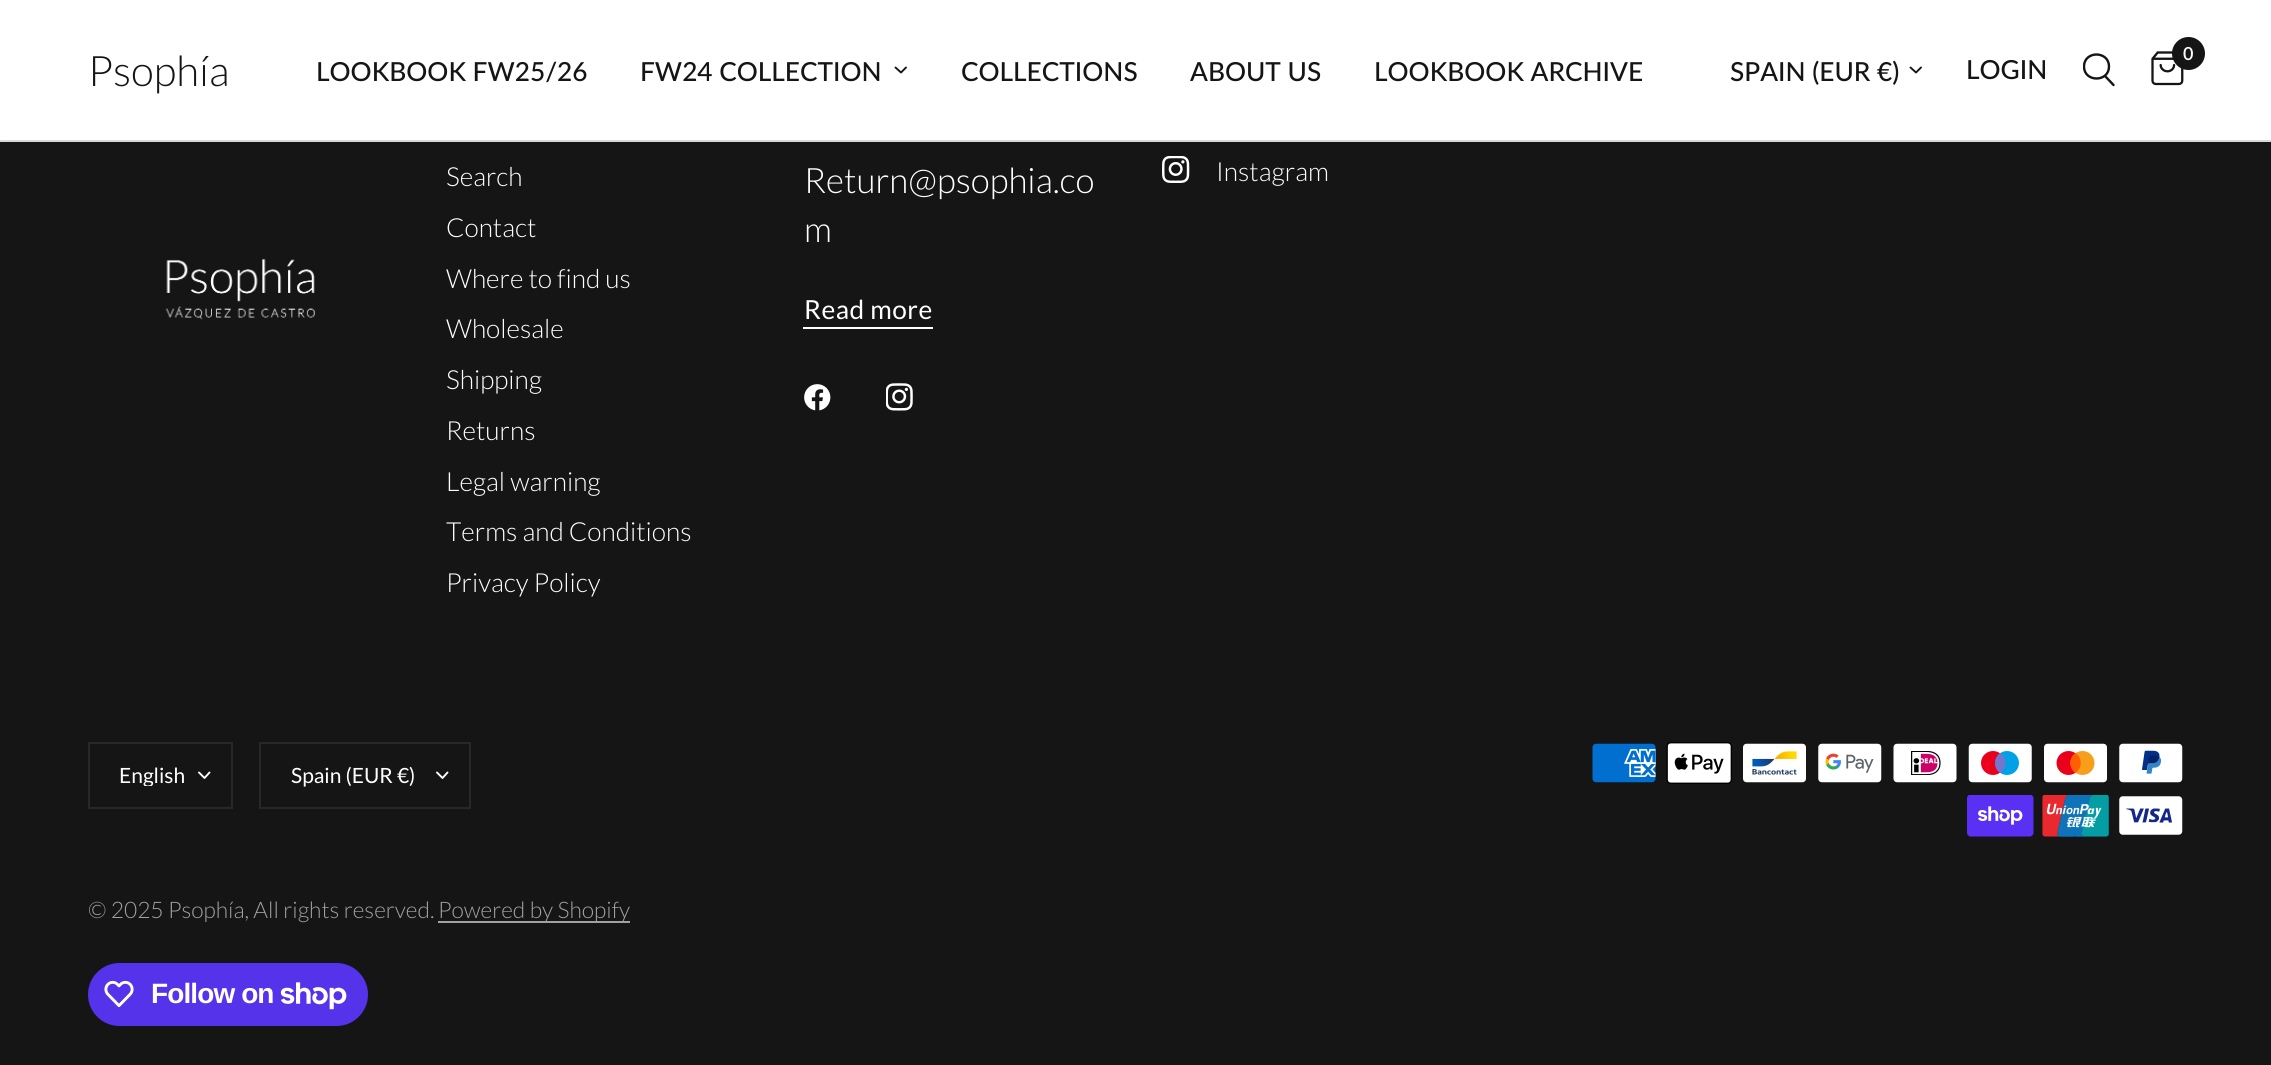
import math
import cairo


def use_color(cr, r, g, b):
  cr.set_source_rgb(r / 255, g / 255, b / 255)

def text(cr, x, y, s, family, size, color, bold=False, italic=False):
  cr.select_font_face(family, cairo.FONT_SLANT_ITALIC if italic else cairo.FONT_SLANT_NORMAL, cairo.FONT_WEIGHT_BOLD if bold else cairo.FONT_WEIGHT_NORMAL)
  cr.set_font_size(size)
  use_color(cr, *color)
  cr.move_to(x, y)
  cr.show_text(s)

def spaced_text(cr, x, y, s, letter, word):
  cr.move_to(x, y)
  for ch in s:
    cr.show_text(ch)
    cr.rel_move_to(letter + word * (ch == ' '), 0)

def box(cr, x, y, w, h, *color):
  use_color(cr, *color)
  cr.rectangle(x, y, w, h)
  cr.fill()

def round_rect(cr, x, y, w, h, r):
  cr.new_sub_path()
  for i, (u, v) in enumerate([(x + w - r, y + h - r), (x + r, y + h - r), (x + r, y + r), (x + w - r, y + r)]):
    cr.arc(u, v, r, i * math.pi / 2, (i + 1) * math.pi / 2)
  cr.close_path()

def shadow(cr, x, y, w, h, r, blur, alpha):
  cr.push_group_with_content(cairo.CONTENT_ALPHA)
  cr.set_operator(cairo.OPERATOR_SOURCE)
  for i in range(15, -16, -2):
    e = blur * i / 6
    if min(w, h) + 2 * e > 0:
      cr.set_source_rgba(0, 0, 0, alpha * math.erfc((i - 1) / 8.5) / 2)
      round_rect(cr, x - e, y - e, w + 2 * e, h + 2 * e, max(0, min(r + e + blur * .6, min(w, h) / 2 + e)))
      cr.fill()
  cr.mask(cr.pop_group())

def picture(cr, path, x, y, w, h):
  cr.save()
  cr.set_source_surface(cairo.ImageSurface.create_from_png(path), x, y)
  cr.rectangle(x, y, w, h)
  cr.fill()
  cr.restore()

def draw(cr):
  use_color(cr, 21, 21, 21)
  cr.paint()
  box(cr, 0, 0, 2271, 140, 255, 255, 255)
  box(cr, 0, 140, 2271, 2, 226, 226, 226)
  picture(cr, "img_05.png", 1162, 156, 28, 27)
  cr.save()
  cr.rectangle(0, 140, 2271, 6)
  cr.clip()
  use_color(cr, 0, 0, 0)
  shadow(cr, 0, 4, 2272, 140, 0, 4.5, 0.06)
  cr.restore()
  cr.new_path()
  cr.move_to(906, 67.5)
  cr.line_to(901, 72.5)
  cr.line_to(895.5, 67.5)
  use_color(cr, 21, 21, 21)
  cr.set_line_width(1.9)
  cr.set_line_cap(cairo.LINE_CAP_ROUND)
  cr.set_line_join(cairo.LINE_JOIN_ROUND)
  cr.stroke()
  cr.new_path()
  cr.move_to(1921, 67.5)
  cr.line_to(1916, 72.5)
  cr.line_to(1910.5, 67.5)
  cr.stroke()
  cr.save()
  cr.rectangle(2083, 53, 33, 35)
  cr.clip()
  cr.new_path()
  cr.move_to(2105, 76)
  cr.line_to(2113.5, 85)
  cr.move_to(2109, 66.5)
  cr.curve_to(2109, 82.5, 2084, 82.5, 2084, 66.5)
  cr.curve_to(2084, 50.5, 2109, 50.5, 2109, 66.5)
  cr.close_path()
  cr.set_line_width(2.4)
  cr.stroke()
  cr.restore()
  picture(cr, "img_01.png", 2151, 51, 33, 35)
  cr.arc(2188.5, 53.5, 16.5, 0, 2 * math.pi)
  cr.fill()
  picture(cr, "img_02.png", 165, 258, 150, 62)
  box(cr, 803, 327, 130, 2, 255, 255, 255)
  picture(cr, "img_03.png", 804, 384, 27, 27)
  picture(cr, "img_04.png", 886, 383, 27, 28)
  cr.rectangle(89, 743, 143, 65)
  use_color(cr, 40, 40, 40)
  cr.set_line_width(2)
  cr.set_line_cap(cairo.LINE_CAP_BUTT)
  cr.set_line_join(cairo.LINE_JOIN_MITER)
  cr.stroke()
  cr.new_path()
  cr.move_to(209.5, 772.5)
  cr.line_to(204.5, 778)
  cr.line_to(199, 772.5)
  use_color(cr, 255, 255, 255)
  cr.set_line_width(1.9)
  cr.set_line_cap(cairo.LINE_CAP_ROUND)
  cr.set_line_join(cairo.LINE_JOIN_ROUND)
  cr.stroke()
  cr.rectangle(260, 743, 210, 65)
  use_color(cr, 40, 40, 40)
  cr.set_line_width(2)
  cr.set_line_cap(cairo.LINE_CAP_BUTT)
  cr.set_line_join(cairo.LINE_JOIN_MITER)
  cr.stroke()
  cr.new_path()
  cr.move_to(447.5, 772.5)
  cr.line_to(442.5, 778)
  cr.line_to(437, 772.5)
  use_color(cr, 255, 255, 255)
  cr.set_line_width(1.9)
  cr.set_line_cap(cairo.LINE_CAP_ROUND)
  cr.set_line_join(cairo.LINE_JOIN_ROUND)
  cr.stroke()
  picture(cr, "img_06.png", 1592, 743, 64, 40)
  picture(cr, "img_07.png", 1666, 742, 66, 42)
  picture(cr, "img_08.png", 1743, 743, 63, 40)
  picture(cr, "img_09.png", 1818, 743, 64, 40)
  picture(cr, "img_10.png", 1893, 743, 64, 40)
  picture(cr, "img_11.png", 1968, 743, 64, 40)
  picture(cr, "img_12.png", 2044, 743, 63, 40)
  picture(cr, "img_13.png", 2119, 743, 64, 40)
  picture(cr, "img_14.png", 1967, 795, 67, 42)
  picture(cr, "img_15.png", 2042, 795, 67, 42)
  picture(cr, "img_16.png", 2119, 796, 64, 39)
  box(cr, 438, 921, 192, 2, 161, 161, 161)
  use_color(cr, 84, 51, 235)
  round_rect(cr, 88, 963, 280, 63, 31.5)
  cr.fill()
  picture(cr, "img_17.png", 104, 980, 30, 28)
  picture(cr, "img_18.png", 280, 982, 67, 28)
  text(cr, 88, 86, "Psophía", "Lato Light", 42, (21, 21, 21))
  text(cr, 316, 81, "LOOKBOOK FW25/26", "Lato Medium", 26.25, (21, 21, 21))
  text(cr, 640, 81, "FW24 COLLECTION", "Lato Medium", 26.25, (21, 21, 21))
  text(cr, 961, 81, "COLLECTIONS", "Lato Medium", 26.25, (21, 21, 21))
  text(cr, 1190, 81, "ABOUT US", "Lato Medium", 26.25, (21, 21, 21))
  text(cr, 1374, 81, "LOOKBOOK ARCHIVE", "Lato Medium", 26.25, (21, 21, 21))
  text(cr, 1730, 81, "SPAIN (EUR €)", "Lato Medium", 26.25, (21, 21, 21))
  text(cr, 1966, 79, "LOGIN", "Lato Medium", 26.25, (21, 21, 21))
  text(cr, 2183, 60, "0", "Lato SemiBold", 18, (255, 255, 255))
  text(cr, 446, 186, "Search", "Lato Light", 26.25, (255, 255, 255))
  text(cr, 446, 237, "Contact", "Lato Light", 26.25, (255, 255, 255))
  text(cr, 446, 288, "Where to find us", "Lato Light", 26.25, (255, 255, 255))
  text(cr, 446, 338, "Wholesale", "Lato Light", 26.25, (255, 255, 255))
  text(cr, 446, 389, "Shipping", "Lato Light", 26.25, (255, 255, 255))
  text(cr, 446, 440, "Returns", "Lato Light", 26.25, (255, 255, 255))
  text(cr, 446, 491, "Legal warning", "Lato Light", 26.25, (255, 255, 255))
  text(cr, 446, 541, "Terms and Conditions", "Lato Light", 26.25, (255, 255, 255))
  text(cr, 446, 592, "Privacy Policy", "Lato Light", 26.25, (255, 255, 255))
  text(cr, 804, 193, "Return@psophia.co", "Lato Light", 35, (255, 255, 255))
  text(cr, 804, 242, "m", "Lato Light", 35, (255, 255, 255))
  cr.select_font_face("Lato")
  cr.set_font_size(26.25)
  spaced_text(cr, 804, 319, "Read more", 0.5, 0)
  text(cr, 1216, 181, "Instagram", "Lato Light", 26.25, (255, 255, 255))
  cr.save()
  cr.rectangle(119, 765, 70, 21)
  cr.clip()
  text(cr, 119, 783, "English", "Lato", 21, (255, 255, 255))
  cr.restore()
  text(cr, 291, 783, "Spain (EUR €)", "Lato", 21, (255, 255, 255))
  text(cr, 88, 918, "© 2025 Psophía, All rights reserved.", "Lato Light", 22.75, (161, 161, 161))
  text(cr, 438, 918, "Powered by Shopify", "Lato Light", 22.75, (161, 161, 161))
  cr.select_font_face("Liberation Sans", cairo.FONT_SLANT_NORMAL, cairo.FONT_WEIGHT_BOLD)
  cr.set_font_size(28)
  use_color(cr, 255, 255, 255)
  spaced_text(cr, 151, 1003, "Follow on", -0.9, 0)


surface = cairo.ImageSurface(cairo.FORMAT_RGB24, 2271, 1065)
cr = cairo.Context(surface)
options = cairo.FontOptions()
options.set_hint_metrics(cairo.HINT_METRICS_OFF)
options.set_hint_style(cairo.HINT_STYLE_NONE)
cr.set_font_options(options)
cr.set_miter_limit(4)
draw(cr)
surface.write_to_png("out.png")
